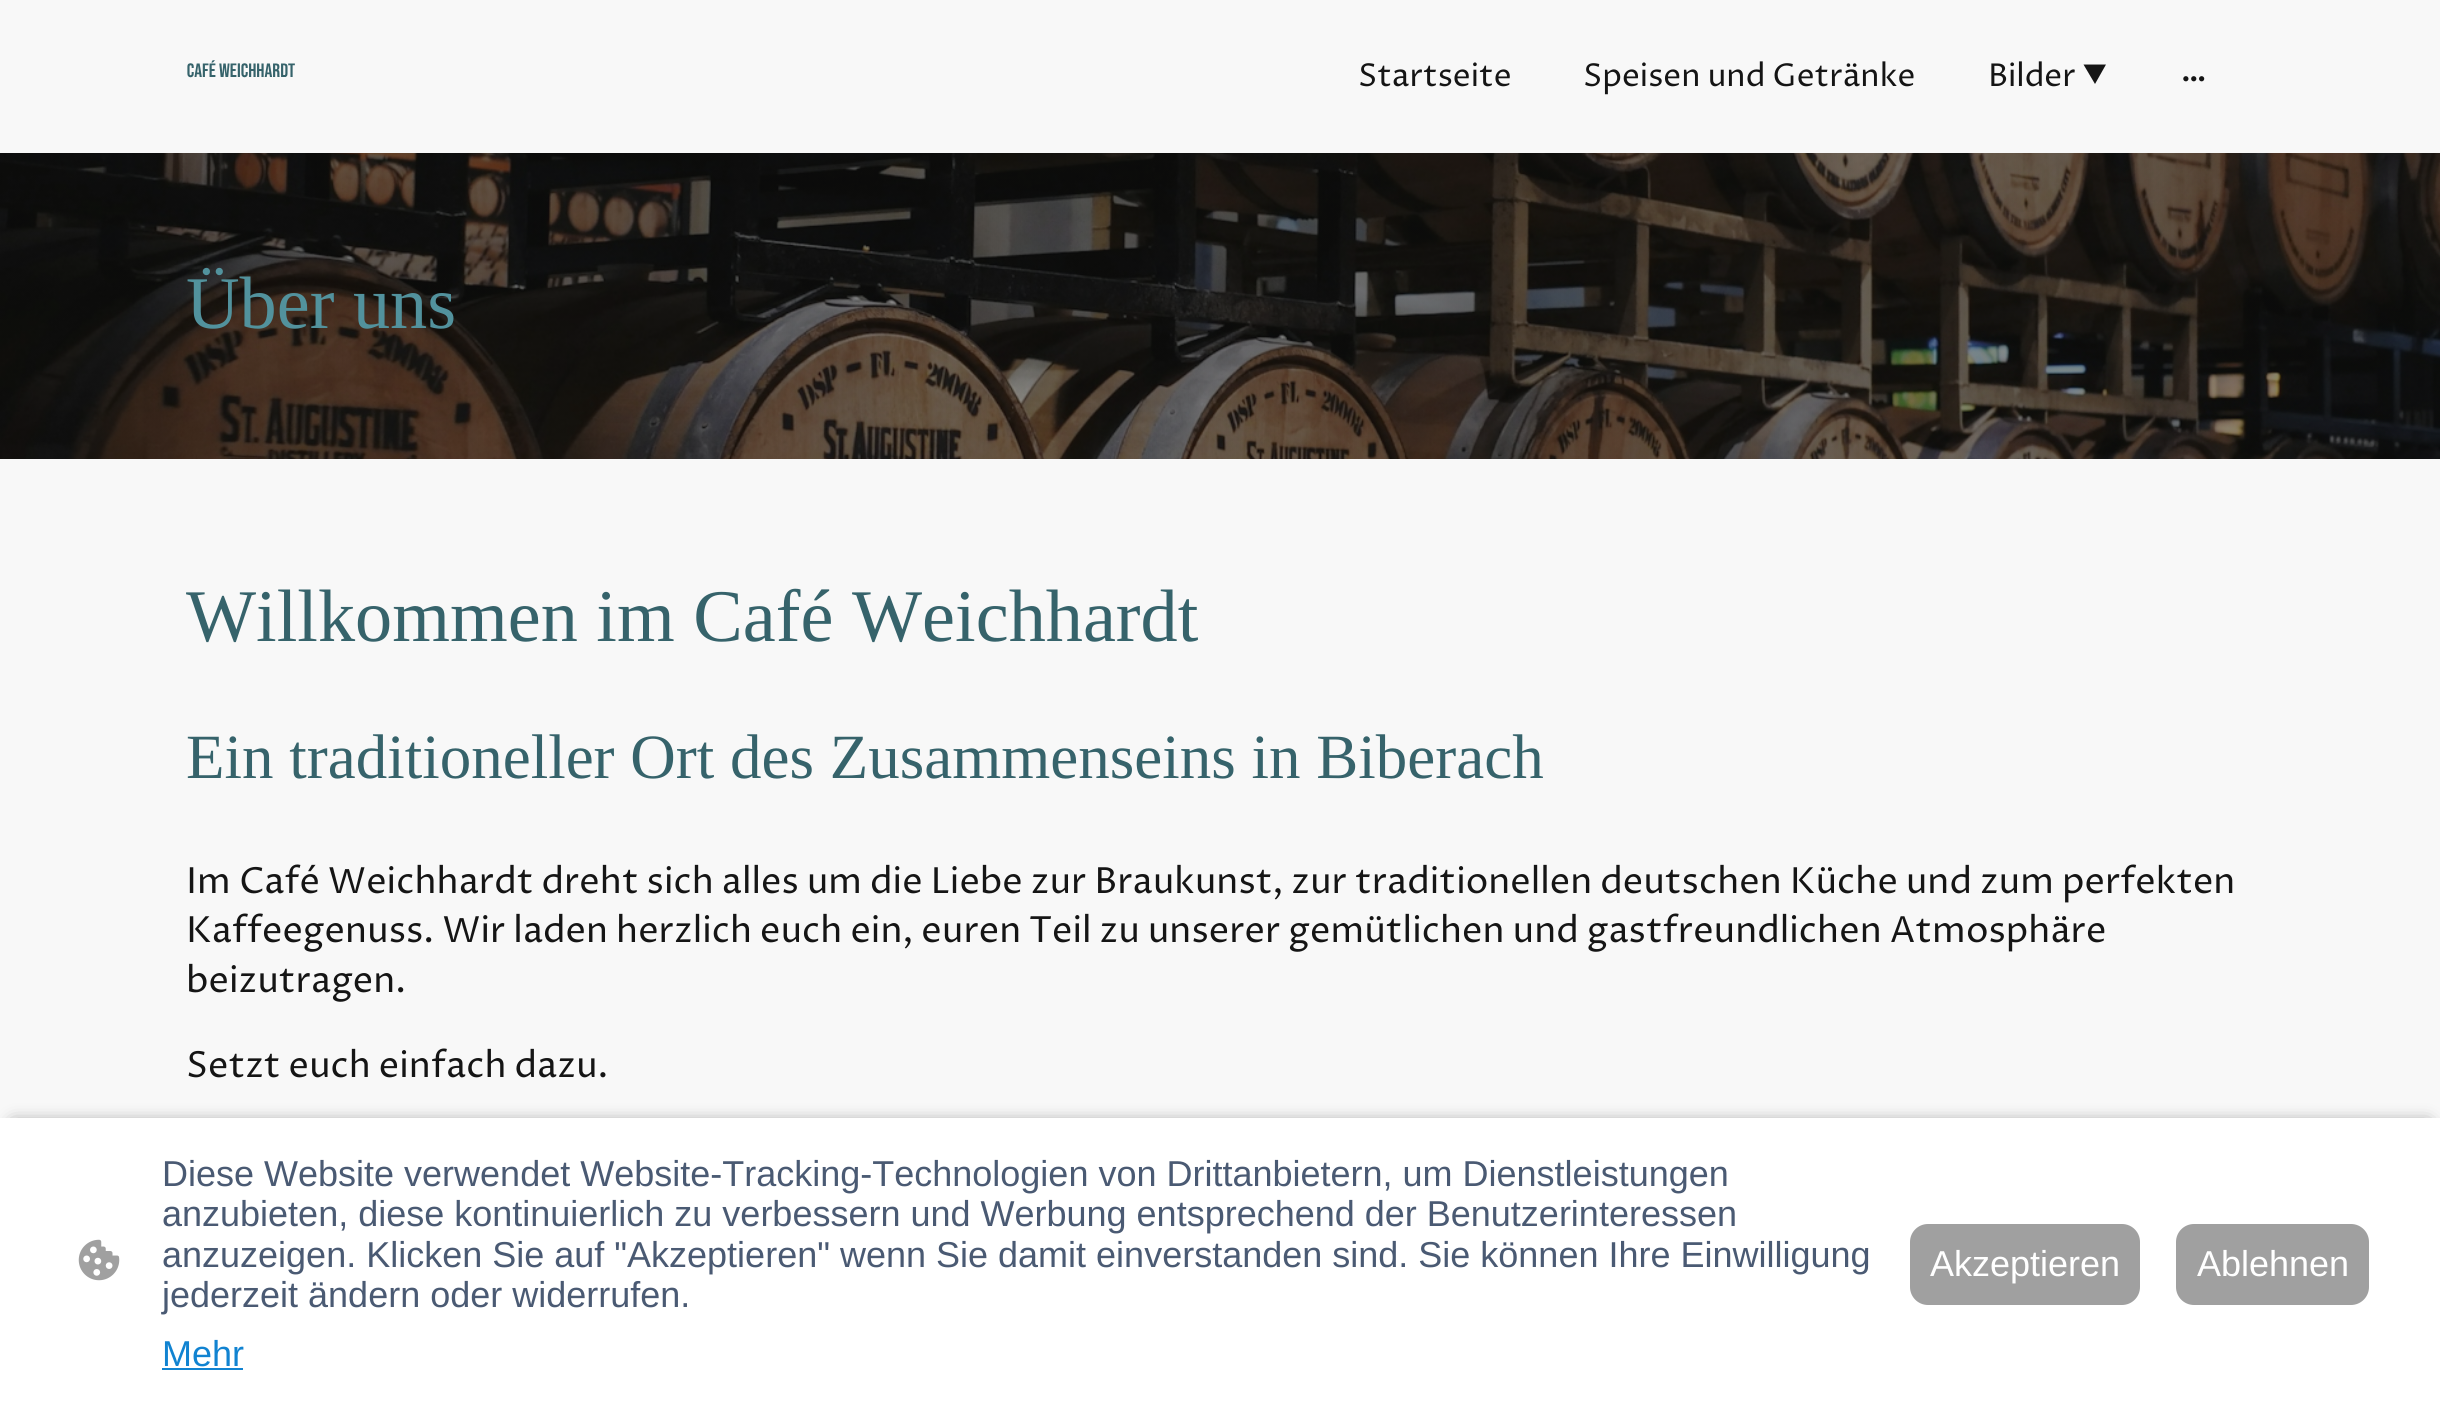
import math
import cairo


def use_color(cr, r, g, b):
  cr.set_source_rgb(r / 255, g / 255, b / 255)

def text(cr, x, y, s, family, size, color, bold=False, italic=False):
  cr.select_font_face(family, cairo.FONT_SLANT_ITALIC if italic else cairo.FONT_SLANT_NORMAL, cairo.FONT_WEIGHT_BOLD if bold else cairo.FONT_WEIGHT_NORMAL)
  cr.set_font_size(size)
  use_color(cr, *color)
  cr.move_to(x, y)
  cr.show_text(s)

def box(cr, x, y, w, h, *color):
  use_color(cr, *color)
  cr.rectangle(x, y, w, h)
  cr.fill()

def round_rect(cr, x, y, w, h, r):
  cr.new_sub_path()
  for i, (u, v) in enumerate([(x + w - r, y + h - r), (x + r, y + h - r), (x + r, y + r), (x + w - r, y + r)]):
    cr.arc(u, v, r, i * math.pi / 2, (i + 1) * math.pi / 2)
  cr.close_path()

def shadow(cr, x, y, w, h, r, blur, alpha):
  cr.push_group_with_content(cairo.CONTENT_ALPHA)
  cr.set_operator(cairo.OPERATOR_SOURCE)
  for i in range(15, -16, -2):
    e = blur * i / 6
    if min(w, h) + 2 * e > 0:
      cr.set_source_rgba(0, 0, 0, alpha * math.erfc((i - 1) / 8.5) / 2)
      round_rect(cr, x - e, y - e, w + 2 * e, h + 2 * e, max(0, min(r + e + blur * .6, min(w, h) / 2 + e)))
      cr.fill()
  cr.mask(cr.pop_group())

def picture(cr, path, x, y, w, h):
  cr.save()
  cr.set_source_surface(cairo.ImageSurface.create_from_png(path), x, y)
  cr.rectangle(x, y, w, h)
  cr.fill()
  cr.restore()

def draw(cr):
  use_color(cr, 255, 255, 255)
  cr.paint()
  box(cr, 0, 0, 2440, 153, 248, 248, 248)
  picture(cr, "img_01.png", 187, 60, 108, 18)
  use_color(cr, 21, 21, 21)
  cr.new_path()
  cr.move_to(2106, 64.5)
  cr.line_to(2095, 84)
  cr.line_to(2083.5, 64.5)
  cr.close_path()
  cr.fill()
  picture(cr, "img_02.png", 2183, 76, 22, 6)
  picture(cr, "img_03.png", 0, 153, 2440, 306)
  box(cr, 0, 459, 2440, 659, 248, 248, 248)
  use_color(cr, 0, 0, 0)
  shadow(cr, 14, 1125, 2414, 266, 0, 9, 0.63)
  box(cr, 0, 1118, 2440, 292, 255, 255, 255)
  picture(cr, "img_04.png", 78, 1239, 42, 42)
  box(cr, 162, 1368, 81, 2, 17, 131, 209)
  use_color(cr, 160, 160, 160)
  round_rect(cr, 1911, 1225, 228, 79, 17)
  cr.fill_preserve()
  cr.stroke()
  round_rect(cr, 2177, 1225, 191, 79, 17)
  cr.fill_preserve()
  cr.stroke()
  text(cr, 1358, 86, "Startseite", "Proza Libre", 31.5, (21, 21, 21))
  text(cr, 1583, 86, "Speisen und Getränke", "Proza Libre", 31.5, (21, 21, 21))
  text(cr, 1988, 86, "Bilder", "Proza Libre", 31.5, (21, 21, 21))
  text(cr, 186, 328, "Über uns", "Liberation Serif", 74.25, (82, 146, 157))
  text(cr, 186, 641, "Willkommen im Café Weichhardt", "Liberation Serif", 74.25, (54, 99, 107))
  text(cr, 186, 778, "Ein traditioneller Ort des Zusammenseins in Biberach", "Liberation Serif", 63, (54, 99, 107))
  text(cr, 186, 893, "Im Café Weichhardt dreht sich alles um die Liebe zur Braukunst, zur traditionellen deutschen Küche und zum perfekten", "Proza Libre", 36, (21, 21, 21))
  text(cr, 186, 942, "Kaffeegenuss. Wir laden herzlich euch ein, euren Teil zu unserer gemütlichen und gastfreundlichen Atmosphäre", "Proza Libre", 36, (21, 21, 21))
  text(cr, 186, 992, "beizutragen.", "Proza Libre", 36, (21, 21, 21))
  text(cr, 186, 1077, "Setzt euch einfach dazu.", "Proza Libre", 36, (21, 21, 21))
  text(cr, 162, 1186, "Diese Website verwendet Website-Tracking-Technologien von Drittanbietern, um Dienstleistungen", "Liberation Sans", 36, (74, 90, 115))
  text(cr, 162, 1226, "anzubieten, diese kontinuierlich zu verbessern und Werbung entsprechend der Benutzerinteressen", "Liberation Sans", 36, (74, 90, 115))
  text(cr, 162, 1267, "anzuzeigen. Klicken Sie auf \"Akzeptieren\" wenn Sie damit einverstanden sind. Sie können Ihre Einwilligung", "Liberation Sans", 36, (74, 90, 115))
  text(cr, 162, 1307, "jederzeit ändern oder widerrufen.", "Liberation Sans", 36, (74, 90, 115))
  text(cr, 162, 1366, "Mehr", "Liberation Sans", 36, (17, 131, 209))
  text(cr, 1930, 1276, "Akzeptieren", "Liberation Sans", 36, (255, 255, 255))
  text(cr, 2197, 1276, "Ablehnen", "Liberation Sans", 36, (255, 255, 255))


surface = cairo.ImageSurface(cairo.FORMAT_RGB24, 2440, 1410)
cr = cairo.Context(surface)
options = cairo.FontOptions()
options.set_hint_metrics(cairo.HINT_METRICS_OFF)
options.set_hint_style(cairo.HINT_STYLE_NONE)
cr.set_font_options(options)
cr.set_miter_limit(4)
draw(cr)
surface.write_to_png("out.png")
